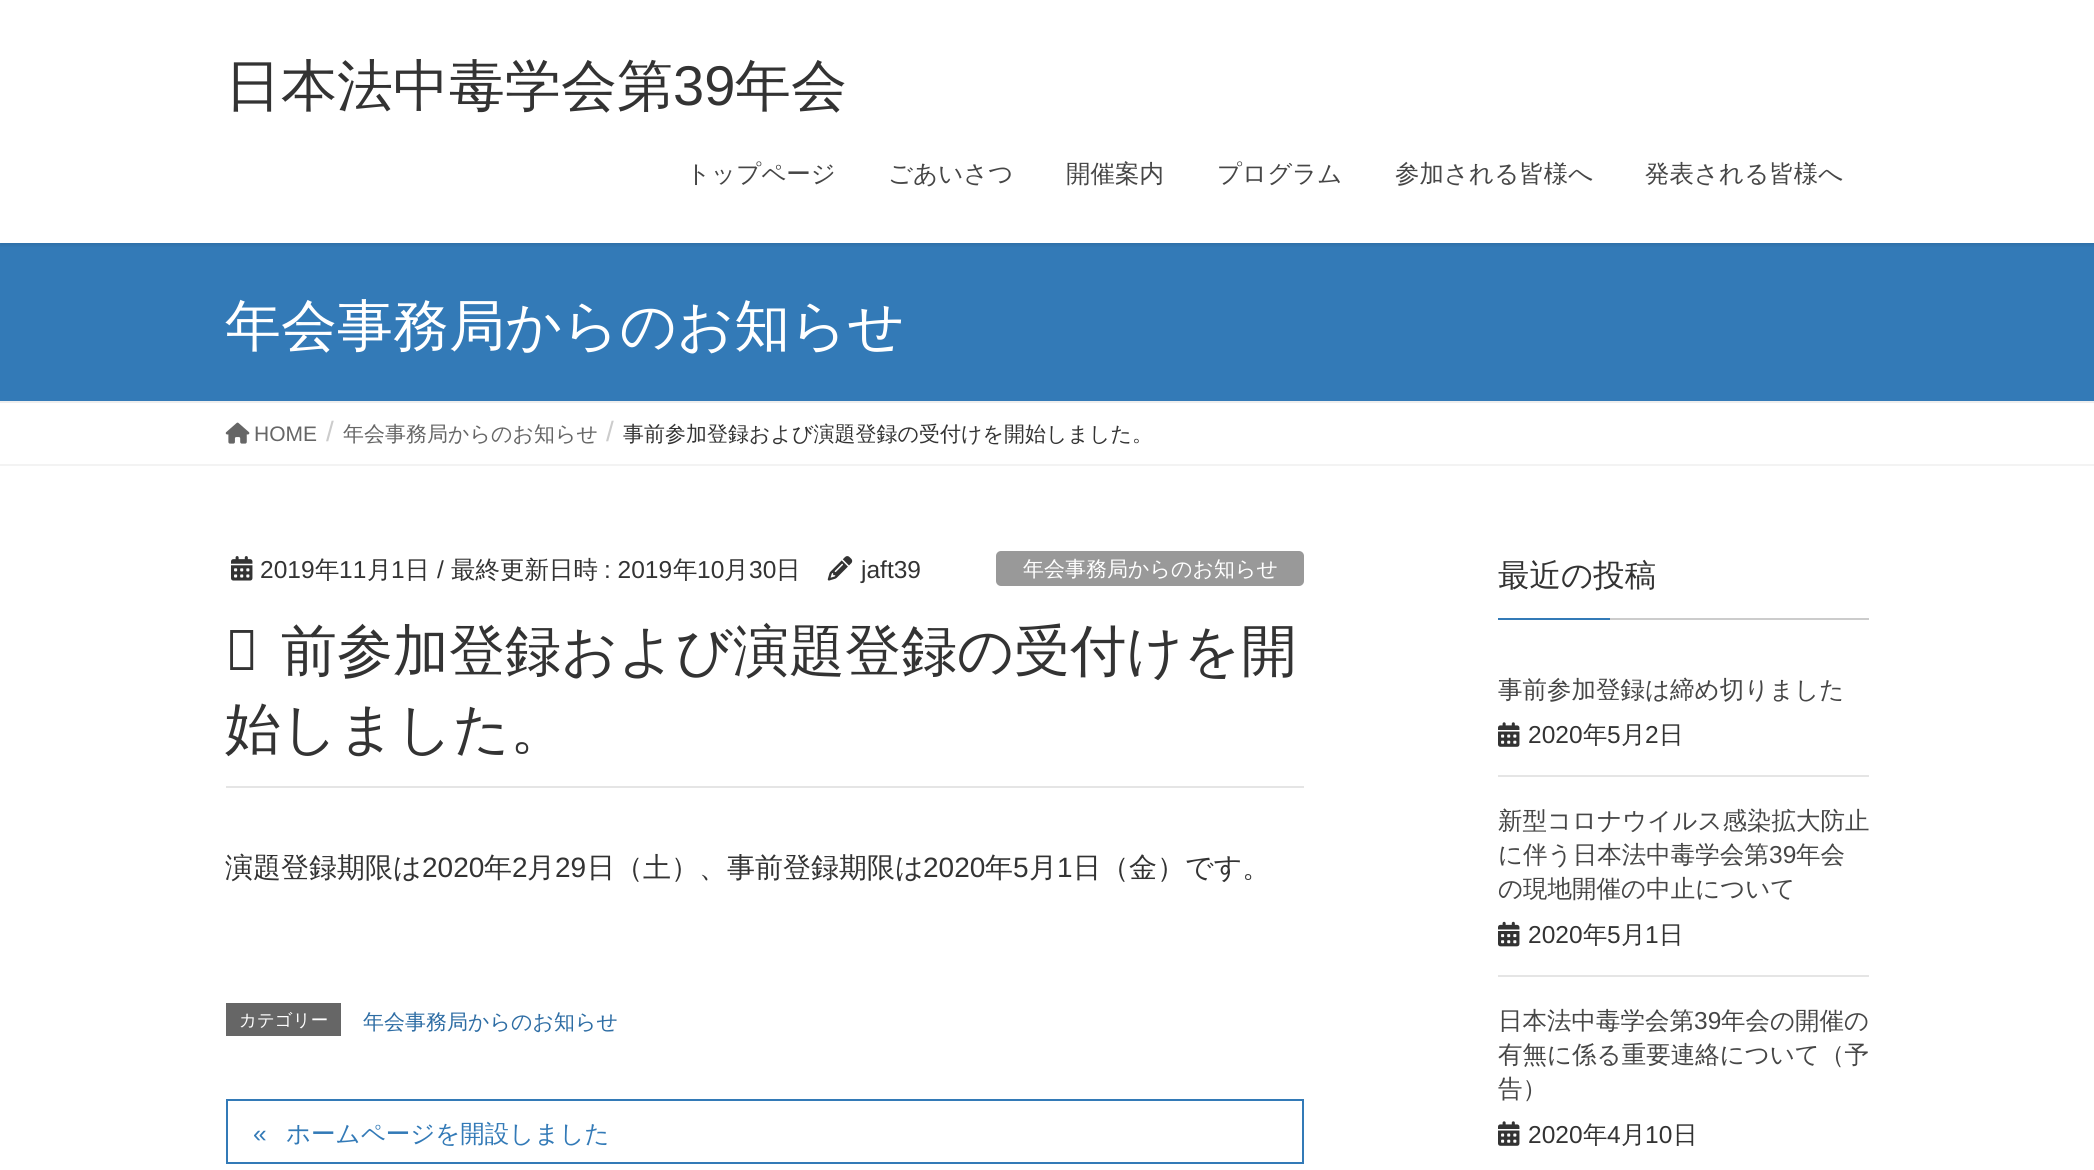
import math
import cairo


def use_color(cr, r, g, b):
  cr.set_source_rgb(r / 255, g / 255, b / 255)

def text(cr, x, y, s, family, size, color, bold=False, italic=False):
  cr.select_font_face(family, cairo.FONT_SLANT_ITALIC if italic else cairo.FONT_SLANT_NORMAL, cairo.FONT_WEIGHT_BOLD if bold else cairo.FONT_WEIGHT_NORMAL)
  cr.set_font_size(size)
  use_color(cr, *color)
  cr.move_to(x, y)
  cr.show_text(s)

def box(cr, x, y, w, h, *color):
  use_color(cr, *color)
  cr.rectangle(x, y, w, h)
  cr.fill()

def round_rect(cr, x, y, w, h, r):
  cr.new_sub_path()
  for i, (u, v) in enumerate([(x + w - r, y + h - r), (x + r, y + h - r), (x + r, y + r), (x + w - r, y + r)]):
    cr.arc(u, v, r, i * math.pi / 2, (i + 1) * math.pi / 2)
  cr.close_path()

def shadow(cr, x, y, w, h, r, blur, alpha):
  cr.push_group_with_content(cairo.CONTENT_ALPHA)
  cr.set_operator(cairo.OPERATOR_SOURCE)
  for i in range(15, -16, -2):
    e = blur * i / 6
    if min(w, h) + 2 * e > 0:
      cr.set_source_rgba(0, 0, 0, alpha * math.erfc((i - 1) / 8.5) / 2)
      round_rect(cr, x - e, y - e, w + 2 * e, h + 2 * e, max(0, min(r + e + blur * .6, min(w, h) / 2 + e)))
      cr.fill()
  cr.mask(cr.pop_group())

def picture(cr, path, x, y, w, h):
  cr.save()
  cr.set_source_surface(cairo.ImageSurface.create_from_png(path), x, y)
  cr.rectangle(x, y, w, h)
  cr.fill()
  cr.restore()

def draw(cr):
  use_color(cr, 255, 255, 255)
  cr.paint()
  box(cr, 0, 243, 2094, 158, 51, 122, 183)
  cr.save()
  cr.rectangle(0, 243, 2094, 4)
  cr.clip()
  use_color(cr, 0, 0, 0)
  shadow(cr, 0, 2, 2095, 243, 0, 2.5, 0.1)
  cr.restore()
  box(cr, 0, 401, 2094, 2, 238, 238, 238)
  box(cr, 0, 464, 2094, 2, 243, 243, 243)
  picture(cr, "img_01.png", 225, 422, 25, 22)
  box(cr, 226, 786, 1078, 2, 229, 229, 229)
  picture(cr, "img_02.png", 231, 556, 22, 25)
  picture(cr, "img_03.png", 827, 556, 26, 25)
  use_color(cr, 153, 153, 153)
  round_rect(cr, 996, 551, 308, 35, 5)
  cr.fill()
  box(cr, 226, 1003, 115, 33, 102, 102, 102)
  cr.rectangle(227, 1100, 1076, 63)
  use_color(cr, 51, 122, 183)
  cr.stroke()
  box(cr, 1610, 618, 259, 2, 204, 204, 204)
  box(cr, 1498, 618, 112, 2, 51, 122, 183)
  box(cr, 1498, 775, 371, 2, 229, 229, 229)
  picture(cr, "img_04.png", 1498, 722, 22, 25)
  box(cr, 1498, 975, 371, 2, 229, 229, 229)
  picture(cr, "img_05.png", 1498, 921, 22, 26)
  picture(cr, "img_04.png", 1498, 1121, 22, 25)
  text(cr, 225, 105, "日本法中毒学会第", "WenQuanYi Zen Hei Medium", 56, (51, 51, 51))
  text(cr, 673, 105, "39", "Liberation Sans", 56, (51, 51, 51))
  text(cr, 735, 105, "年会", "WenQuanYi Zen Hei Medium", 56, (51, 51, 51))
  text(cr, 686, 182, "トップページ", "WenQuanYi Zen Hei Medium", 24.5, (70, 70, 70))
  text(cr, 888, 182, "ごあいさつ", "WenQuanYi Zen Hei Medium", 24.5, (70, 70, 70))
  text(cr, 1066, 182, "開催案内", "WenQuanYi Zen Hei Medium", 24.5, (70, 70, 70))
  text(cr, 1217, 182, "プログラム", "WenQuanYi Zen Hei Medium", 24.5, (70, 70, 70))
  text(cr, 1395, 182, "参加される皆様へ", "WenQuanYi Zen Hei Medium", 24.5, (70, 70, 70))
  text(cr, 1645, 182, "発表される皆様へ", "WenQuanYi Zen Hei Medium", 24.5, (70, 70, 70))
  text(cr, 225, 345, "年会事務局からのお知らせ", "WenQuanYi Zen Hei Medium", 56, (255, 255, 255))
  text(cr, 254, 441, "HOME", "Liberation Sans", 21, (102, 102, 102))
  text(cr, 326, 441, "/", "Liberation Sans", 28, (204, 204, 204))
  text(cr, 343, 441, "年会事務局からのお知らせ", "WenQuanYi Zen Hei Medium", 21, (102, 102, 102))
  text(cr, 606, 441, "/", "Liberation Sans", 28, (204, 204, 204))
  text(cr, 623, 441, "事前参加登録および演題登録の受付けを開始しました。", "WenQuanYi Zen Hei Medium", 21, (51, 51, 51))
  text(cr, 260, 578, "2019", "Liberation Sans", 24.5, (51, 51, 51))
  text(cr, 315, 578, "年", "WenQuanYi Zen Hei Medium", 24.5, (51, 51, 51))
  text(cr, 339, 578, "11", "Liberation Sans", 24.5, (51, 51, 51))
  text(cr, 367, 578, "月", "WenQuanYi Zen Hei Medium", 24.5, (51, 51, 51))
  text(cr, 391, 578, "1", "Liberation Sans", 24.5, (51, 51, 51))
  text(cr, 405, 578, "日", "WenQuanYi Zen Hei Medium", 24.5, (51, 51, 51))
  text(cr, 437, 578, "/", "Liberation Sans", 24.5, (51, 51, 51))
  text(cr, 451, 578, "最終更新日時", "WenQuanYi Zen Hei Medium", 24.5, (51, 51, 51))
  text(cr, 604, 578, ": 2019", "Liberation Sans", 24.5, (51, 51, 51))
  text(cr, 673, 578, "年", "WenQuanYi Zen Hei Medium", 24.5, (51, 51, 51))
  text(cr, 697, 578, "10", "Liberation Sans", 24.5, (51, 51, 51))
  text(cr, 724, 578, "月", "WenQuanYi Zen Hei Medium", 24.5, (51, 51, 51))
  text(cr, 749, 578, "30", "Liberation Sans", 24.5, (51, 51, 51))
  text(cr, 776, 578, "日", "WenQuanYi Zen Hei Medium", 24.5, (51, 51, 51))
  text(cr, 861, 578, "jaft39", "Liberation Sans", 24.5, (51, 51, 51))
  text(cr, 1023, 576, "年会事務局からのお知らせ", "WenQuanYi Zen Hei Medium", 21, (255, 255, 255))
  text(cr, 225, 670, "事", "Noto Sans Medium", 56, (51, 51, 51))
  text(cr, 281, 670, "前参加登録および演題登録の受付けを開", "WenQuanYi Zen Hei Medium", 56, (51, 51, 51))
  text(cr, 225, 748, "始しました。", "WenQuanYi Zen Hei Medium", 56, (51, 51, 51))
  text(cr, 225, 877, "演題登録期限は", "WenQuanYi Zen Hei Medium", 28, (51, 51, 51))
  text(cr, 422, 877, "2020", "Liberation Sans", 28, (51, 51, 51))
  text(cr, 484, 877, "年", "WenQuanYi Zen Hei Medium", 28, (51, 51, 51))
  text(cr, 512, 877, "2", "Liberation Sans", 28, (51, 51, 51))
  text(cr, 527, 877, "月", "WenQuanYi Zen Hei Medium", 28, (51, 51, 51))
  text(cr, 555, 877, "29", "Liberation Sans", 28, (51, 51, 51))
  text(cr, 587, 877, "日（土）、事前登録期限は", "WenQuanYi Zen Hei Medium", 28, (51, 51, 51))
  text(cr, 923, 877, "2020", "Liberation Sans", 28, (51, 51, 51))
  text(cr, 985, 877, "年", "WenQuanYi Zen Hei Medium", 28, (51, 51, 51))
  text(cr, 1013, 877, "5", "Liberation Sans", 28, (51, 51, 51))
  text(cr, 1029, 877, "月", "WenQuanYi Zen Hei Medium", 28, (51, 51, 51))
  text(cr, 1057, 877, "1", "Liberation Sans", 28, (51, 51, 51))
  text(cr, 1073, 877, "日（金）です。", "WenQuanYi Zen Hei Medium", 28, (51, 51, 51))
  text(cr, 239, 1026, "カテゴリー", "WenQuanYi Zen Hei Medium", 17.5, (255, 255, 255))
  text(cr, 363, 1029, "年会事務局からのお知らせ", "WenQuanYi Zen Hei Medium", 21, (46, 109, 164))
  text(cr, 253, 1142, "«", "Liberation Sans", 24.5, (51, 122, 183))
  text(cr, 286, 1142, "ホームページを開設しました", "WenQuanYi Zen Hei Medium", 24.5, (51, 122, 183))
  text(cr, 1498, 586, "最近の投稿", "WenQuanYi Zen Hei Medium", 31.5, (51, 51, 51))
  text(cr, 1498, 698, "事前参加登録は締め切りました", "WenQuanYi Zen Hei Medium", 24.5, (70, 70, 70))
  text(cr, 1528, 743, "2020", "Liberation Sans", 24.5, (51, 51, 51))
  text(cr, 1583, 743, "年", "WenQuanYi Zen Hei Medium", 24.5, (51, 51, 51))
  text(cr, 1607, 743, "5", "Liberation Sans", 24.5, (51, 51, 51))
  text(cr, 1621, 743, "月", "WenQuanYi Zen Hei Medium", 24.5, (51, 51, 51))
  text(cr, 1645, 743, "2", "Liberation Sans", 24.5, (51, 51, 51))
  text(cr, 1659, 743, "日", "WenQuanYi Zen Hei Medium", 24.5, (51, 51, 51))
  text(cr, 1498, 829, "新型コロナウイルス感染拡大防止", "WenQuanYi Zen Hei Medium", 24.5, (70, 70, 70))
  text(cr, 1498, 863, "に伴う日本法中毒学会第", "WenQuanYi Zen Hei Medium", 24.5, (70, 70, 70))
  text(cr, 1769, 863, "39", "Liberation Sans", 24.5, (70, 70, 70))
  text(cr, 1796, 863, "年会", "WenQuanYi Zen Hei Medium", 24.5, (70, 70, 70))
  text(cr, 1498, 897, "の現地開催の中止について", "WenQuanYi Zen Hei Medium", 24.5, (70, 70, 70))
  text(cr, 1528, 943, "2020", "Liberation Sans", 24.5, (51, 51, 51))
  text(cr, 1583, 943, "年", "WenQuanYi Zen Hei Medium", 24.5, (51, 51, 51))
  text(cr, 1607, 943, "5", "Liberation Sans", 24.5, (51, 51, 51))
  text(cr, 1621, 943, "月", "WenQuanYi Zen Hei Medium", 24.5, (51, 51, 51))
  text(cr, 1645, 943, "1", "Liberation Sans", 24.5, (51, 51, 51))
  text(cr, 1659, 943, "日", "WenQuanYi Zen Hei Medium", 24.5, (51, 51, 51))
  text(cr, 1498, 1029, "日本法中毒学会第", "WenQuanYi Zen Hei Medium", 24.5, (70, 70, 70))
  text(cr, 1694, 1029, "39", "Liberation Sans", 24.5, (70, 70, 70))
  text(cr, 1721, 1029, "年会の開催の", "WenQuanYi Zen Hei Medium", 24.5, (70, 70, 70))
  text(cr, 1498, 1063, "有無に係る重要連絡について（予", "WenQuanYi Zen Hei Medium", 24.5, (70, 70, 70))
  text(cr, 1498, 1097, "告）", "WenQuanYi Zen Hei Medium", 24.5, (70, 70, 70))
  text(cr, 1528, 1143, "2020", "Liberation Sans", 24.5, (51, 51, 51))
  text(cr, 1583, 1143, "年", "WenQuanYi Zen Hei Medium", 24.5, (51, 51, 51))
  text(cr, 1607, 1143, "4", "Liberation Sans", 24.5, (51, 51, 51))
  text(cr, 1621, 1143, "月", "WenQuanYi Zen Hei Medium", 24.5, (51, 51, 51))
  text(cr, 1645, 1143, "10", "Liberation Sans", 24.5, (51, 51, 51))
  text(cr, 1673, 1143, "日", "WenQuanYi Zen Hei Medium", 24.5, (51, 51, 51))


surface = cairo.ImageSurface(cairo.FORMAT_RGB24, 2094, 1170)
cr = cairo.Context(surface)
options = cairo.FontOptions()
options.set_hint_metrics(cairo.HINT_METRICS_OFF)
options.set_hint_style(cairo.HINT_STYLE_NONE)
cr.set_font_options(options)
cr.set_miter_limit(4)
draw(cr)
surface.write_to_png("out.png")
